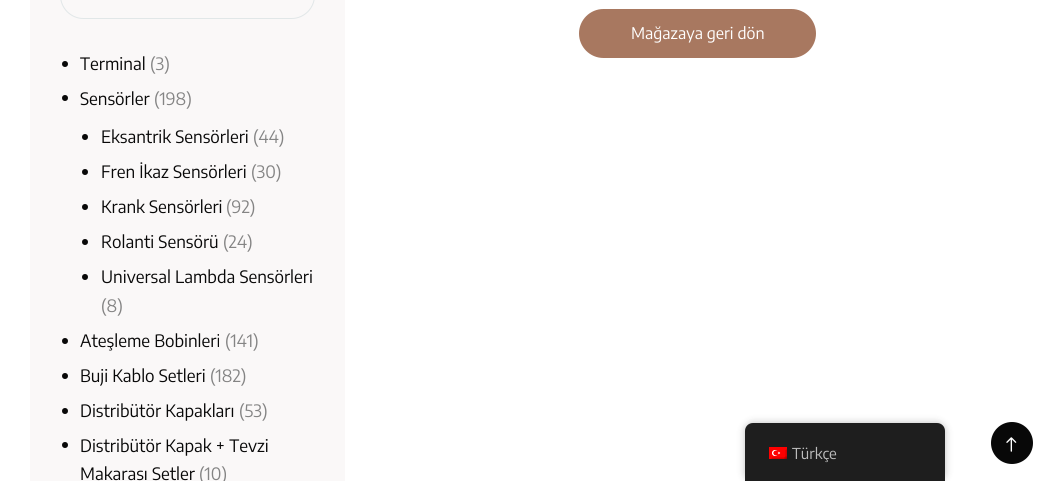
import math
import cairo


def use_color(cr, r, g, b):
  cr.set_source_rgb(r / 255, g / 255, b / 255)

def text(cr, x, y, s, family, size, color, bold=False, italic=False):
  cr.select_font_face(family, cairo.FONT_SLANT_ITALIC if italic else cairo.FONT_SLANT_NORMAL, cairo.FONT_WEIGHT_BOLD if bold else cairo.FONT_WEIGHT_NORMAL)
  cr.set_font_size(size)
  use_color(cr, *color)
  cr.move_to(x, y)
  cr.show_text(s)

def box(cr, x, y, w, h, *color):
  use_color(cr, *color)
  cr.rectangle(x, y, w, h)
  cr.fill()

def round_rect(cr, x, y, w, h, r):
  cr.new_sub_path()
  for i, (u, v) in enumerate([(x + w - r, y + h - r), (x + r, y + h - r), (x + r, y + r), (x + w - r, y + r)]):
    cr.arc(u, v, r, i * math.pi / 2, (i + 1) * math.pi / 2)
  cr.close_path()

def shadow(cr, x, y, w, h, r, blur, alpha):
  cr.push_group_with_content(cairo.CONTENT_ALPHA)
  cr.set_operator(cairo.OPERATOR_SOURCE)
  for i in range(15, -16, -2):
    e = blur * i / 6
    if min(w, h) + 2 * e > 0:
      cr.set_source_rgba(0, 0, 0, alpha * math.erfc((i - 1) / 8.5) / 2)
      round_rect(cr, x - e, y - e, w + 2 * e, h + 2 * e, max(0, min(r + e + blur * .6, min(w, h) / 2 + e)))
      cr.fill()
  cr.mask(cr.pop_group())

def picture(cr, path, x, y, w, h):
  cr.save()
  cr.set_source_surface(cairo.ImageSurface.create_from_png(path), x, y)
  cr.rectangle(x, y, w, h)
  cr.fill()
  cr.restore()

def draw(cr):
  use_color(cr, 255, 255, 255)
  cr.paint()
  use_color(cr, 168, 120, 96)
  round_rect(cr, 579, 9, 237, 49, 24.5)
  cr.fill()
  box(cr, 30, 0, 315, 481, 250, 248, 248)
  round_rect(cr, 60.5, -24.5, 254, 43, 23)
  use_color(cr, 225, 231, 232)
  cr.set_line_width(1)
  cr.stroke()
  use_color(cr, 8, 8, 8)
  cr.arc(65, 64, 3, 0, 2 * math.pi)
  cr.fill()
  cr.arc(65, 98, 3, 0, 2 * math.pi)
  cr.fill()
  cr.arc(85, 137, 3, 0, 2 * math.pi)
  cr.fill()
  cr.arc(85, 172, 3, 0, 2 * math.pi)
  cr.fill()
  cr.arc(85, 207, 3, 0, 2 * math.pi)
  cr.fill()
  cr.arc(85, 242, 3, 0, 2 * math.pi)
  cr.fill()
  cr.arc(85, 277, 3, 0, 2 * math.pi)
  cr.fill()
  cr.arc(65, 341, 3, 0, 2 * math.pi)
  cr.fill()
  cr.arc(65, 376, 3, 0, 2 * math.pi)
  cr.fill()
  cr.arc(65, 411, 3, 0, 2 * math.pi)
  cr.fill()
  cr.arc(65, 445, 3, 0, 2 * math.pi)
  cr.fill()
  use_color(cr, 0, 0, 0)
  shadow(cr, 745, 423, 200, 58, 8, 4, 0.25)
  use_color(cr, 30, 30, 30)
  cr.new_path()
  cr.move_to(753, 423)
  cr.line_to(937, 423)
  cr.curve_to(941.5, 423, 945, 426.5, 945, 431)
  cr.line_to(945, 481)
  cr.line_to(745, 481)
  cr.line_to(745, 431)
  cr.curve_to(745, 426.5, 748.5, 423, 753, 423)
  cr.close_path()
  cr.fill()
  picture(cr, "img_01.png", 769, 447, 18, 12)
  use_color(cr, 8, 8, 8)
  cr.arc(1012, 443, 21, 0, 2 * math.pi)
  cr.fill()
  picture(cr, "img_02.png", 1006, 437, 11, 15)
  text(cr, 631, 39, "Mağazaya geri dön", "Encode Sans Condensed", 16, (255, 255, 255))
  text(cr, 80, 70, "Terminal", "Encode Sans Condensed", 17, (8, 8, 8))
  text(cr, 150, 70, "(3)", "Encode Sans Condensed", 17, (132, 132, 132))
  text(cr, 80, 105, "Sensörler", "Encode Sans Condensed", 17, (8, 8, 8))
  text(cr, 154, 105, "(198)", "Encode Sans Condensed", 17, (132, 132, 132))
  text(cr, 101, 143, "Eksantrik Sensörleri", "Encode Sans Condensed", 17, (8, 8, 8))
  text(cr, 253, 143, "(44)", "Encode Sans Condensed", 17, (132, 132, 132))
  text(cr, 101, 178, "Fren İkaz Sensörleri", "Encode Sans Condensed", 17, (8, 8, 8))
  text(cr, 251, 178, "(30)", "Encode Sans Condensed", 17, (132, 132, 132))
  text(cr, 101, 213, "Krank Sensörleri", "Encode Sans Condensed", 17, (8, 8, 8))
  text(cr, 226, 213, "(92)", "Encode Sans Condensed", 17, (132, 132, 132))
  text(cr, 101, 248, "Rolanti Sensörü", "Encode Sans Condensed", 17, (8, 8, 8))
  text(cr, 223, 248, "(24)", "Encode Sans Condensed", 17, (132, 132, 132))
  text(cr, 101, 283, "Universal Lambda Sensörleri", "Encode Sans Condensed", 17, (8, 8, 8))
  text(cr, 101, 312, "(8)", "Encode Sans Condensed", 17, (132, 132, 132))
  text(cr, 80, 347, "Ateşleme Bobinleri", "Encode Sans Condensed", 17, (8, 8, 8))
  text(cr, 225, 347, "(141)", "Encode Sans Condensed", 17, (132, 132, 132))
  text(cr, 80, 382, "Buji Kablo Setleri", "Encode Sans Condensed", 17, (8, 8, 8))
  text(cr, 210, 382, "(182)", "Encode Sans Condensed", 17, (132, 132, 132))
  text(cr, 80, 417, "Distribütör Kapakları", "Encode Sans Condensed", 17, (8, 8, 8))
  text(cr, 239, 417, "(53)", "Encode Sans Condensed", 17, (132, 132, 132))
  text(cr, 80, 452, "Distribütör Kapak + Tevzi", "Encode Sans Condensed", 17, (8, 8, 8))
  text(cr, 80, 480, "Makarası Setler", "Encode Sans Condensed", 17, (8, 8, 8))
  text(cr, 199, 480, "(10)", "Encode Sans Condensed", 17, (132, 132, 132))
  text(cr, 792, 459, "Türkçe", "Encode Sans Condensed", 15, (189, 189, 189))


surface = cairo.ImageSurface(cairo.FORMAT_RGB24, 1050, 481)
cr = cairo.Context(surface)
options = cairo.FontOptions()
options.set_hint_metrics(cairo.HINT_METRICS_OFF)
options.set_hint_style(cairo.HINT_STYLE_NONE)
cr.set_font_options(options)
cr.set_miter_limit(4)
draw(cr)
surface.write_to_png("out.png")
